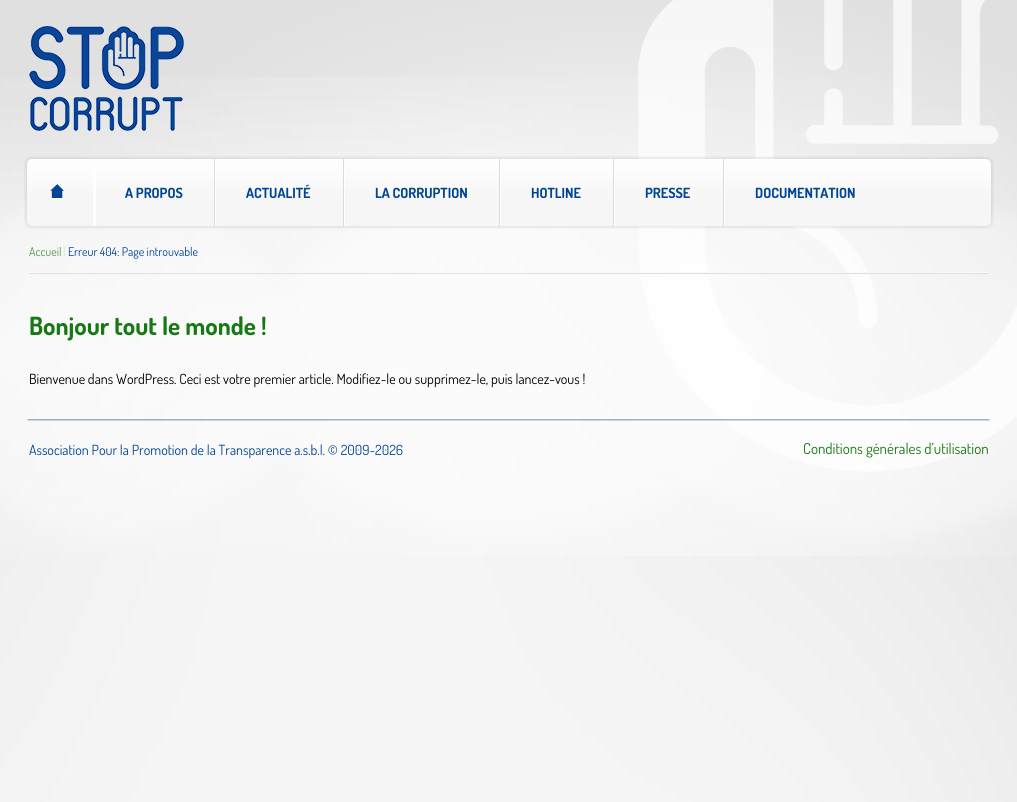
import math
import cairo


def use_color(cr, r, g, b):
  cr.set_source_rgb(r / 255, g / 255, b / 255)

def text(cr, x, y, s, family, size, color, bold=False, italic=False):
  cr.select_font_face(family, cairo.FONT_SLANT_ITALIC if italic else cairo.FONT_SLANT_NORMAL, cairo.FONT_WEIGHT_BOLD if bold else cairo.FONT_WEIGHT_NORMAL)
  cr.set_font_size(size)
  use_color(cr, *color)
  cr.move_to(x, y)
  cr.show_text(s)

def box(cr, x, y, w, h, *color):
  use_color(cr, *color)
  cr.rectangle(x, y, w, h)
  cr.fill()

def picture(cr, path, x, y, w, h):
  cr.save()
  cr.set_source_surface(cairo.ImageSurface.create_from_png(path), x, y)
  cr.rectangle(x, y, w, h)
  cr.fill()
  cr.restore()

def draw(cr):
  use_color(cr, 224, 224, 224)
  cr.paint()
  picture(cr, "img_01.png", 0, 77, 1017, 725)
  picture(cr, "img_02.png", 0, 0, 1017, 556)
  picture(cr, "img_03.png", 29, 26, 155, 105)
  picture(cr, "img_04.png", 24, 156, 970, 73)
  picture(cr, "img_05.png", 50, 184, 14, 15)
  box(cr, 93, 170, 3, 56, 255, 255, 255)
  picture(cr, "img_06.png", 214, 159, 2, 67)
  picture(cr, "img_06.png", 343, 159, 2, 67)
  picture(cr, "img_06.png", 499, 159, 2, 67)
  picture(cr, "img_06.png", 613, 159, 2, 67)
  picture(cr, "img_06.png", 723, 159, 2, 67)
  picture(cr, "img_07.png", 29, 272, 960, 2)
  picture(cr, "img_08.png", 27, 419, 963, 2)
  text(cr, 125, 198, "A PROPOS", "Dosis", 14, (0, 68, 148), bold=True)
  text(cr, 246, 198, "ACTUALITÉ", "Dosis", 14, (0, 68, 148), bold=True)
  text(cr, 375, 198, "LA CORRUPTION", "Dosis", 14, (0, 68, 148), bold=True)
  text(cr, 531, 198, "HOTLINE", "Dosis", 14, (0, 68, 148), bold=True)
  text(cr, 645, 198, "PRESSE", "Dosis", 14, (0, 68, 148), bold=True)
  text(cr, 755, 198, "DOCUMENTATION", "Dosis", 14, (0, 68, 148), bold=True)
  text(cr, 29, 256, "Accueil", "Dosis", 12, (80, 154, 77))
  text(cr, 63, 256, "|", "Dosis", 12, (212, 220, 227))
  text(cr, 68, 256, "Erreur 404: Page introuvable", "Dosis", 12, (0, 68, 148))
  text(cr, 29, 335, "Bonjour tout le monde !", "Dosis", 25, (22, 121, 19), bold=True)
  text(cr, 29, 384, "Bienvenue dans WordPress. Ceci est votre premier article. Modifiez-le ou supprimez-le, puis lancez-vous !", "Dosis", 14, (0, 0, 0))
  text(cr, 29, 455, "Association Pour la Promotion de la Transparence a.s.b.l. © 2009-2026", "Dosis", 14, (0, 68, 148))
  text(cr, 803, 454, "Conditions générales d’utilisation", "Dosis", 15, (22, 121, 19))


surface = cairo.ImageSurface(cairo.FORMAT_RGB24, 1017, 802)
cr = cairo.Context(surface)
options = cairo.FontOptions()
options.set_hint_metrics(cairo.HINT_METRICS_OFF)
options.set_hint_style(cairo.HINT_STYLE_NONE)
cr.set_font_options(options)
cr.set_miter_limit(4)
draw(cr)
surface.write_to_png("out.png")
